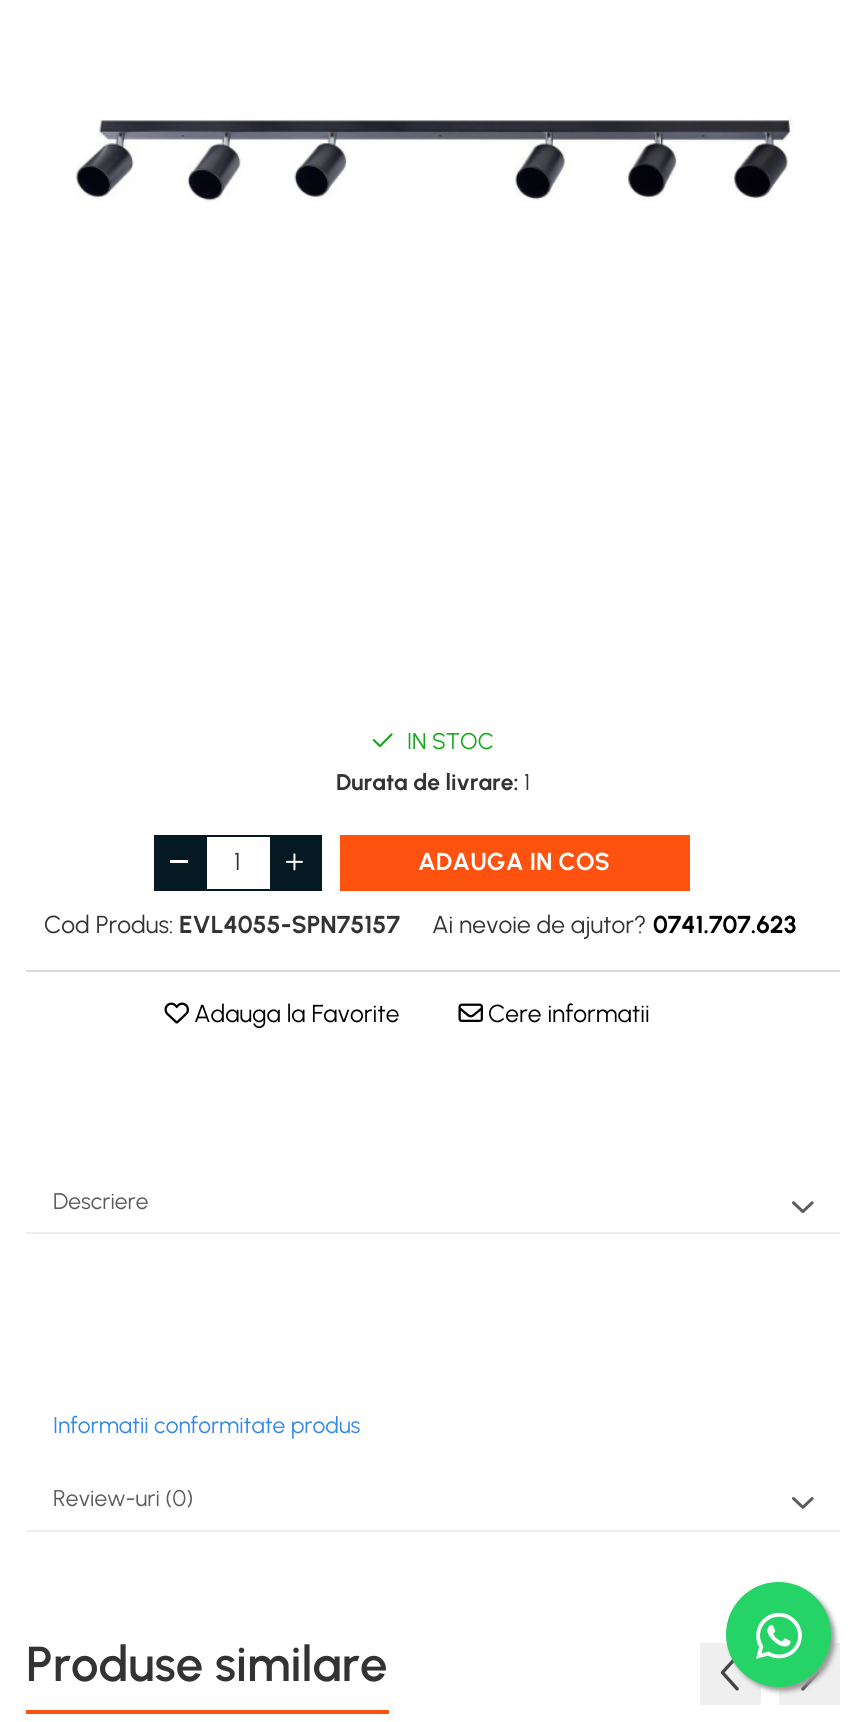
import math
import cairo


def use_color(cr, r, g, b):
  cr.set_source_rgb(r / 255, g / 255, b / 255)

def text(cr, x, y, s, family, size, color, bold=False, italic=False):
  cr.select_font_face(family, cairo.FONT_SLANT_ITALIC if italic else cairo.FONT_SLANT_NORMAL, cairo.FONT_WEIGHT_BOLD if bold else cairo.FONT_WEIGHT_NORMAL)
  cr.set_font_size(size)
  use_color(cr, *color)
  cr.move_to(x, y)
  cr.show_text(s)

def box(cr, x, y, w, h, *color):
  use_color(cr, *color)
  cr.rectangle(x, y, w, h)
  cr.fill()

def round_rect(cr, x, y, w, h, r):
  cr.new_sub_path()
  for i, (u, v) in enumerate([(x + w - r, y + h - r), (x + r, y + h - r), (x + r, y + r), (x + w - r, y + r)]):
    cr.arc(u, v, r, i * math.pi / 2, (i + 1) * math.pi / 2)
  cr.close_path()

def shadow(cr, x, y, w, h, r, blur, alpha):
  cr.push_group_with_content(cairo.CONTENT_ALPHA)
  cr.set_operator(cairo.OPERATOR_SOURCE)
  for i in range(15, -16, -2):
    e = blur * i / 6
    if min(w, h) + 2 * e > 0:
      cr.set_source_rgba(0, 0, 0, alpha * math.erfc((i - 1) / 8.5) / 2)
      round_rect(cr, x - e, y - e, w + 2 * e, h + 2 * e, max(0, min(r + e + blur * .6, min(w, h) / 2 + e)))
      cr.fill()
  cr.mask(cr.pop_group())

def picture(cr, path, x, y, w, h):
  cr.save()
  cr.set_source_surface(cairo.ImageSurface.create_from_png(path), x, y)
  cr.rectangle(x, y, w, h)
  cr.fill()
  cr.restore()

def draw(cr):
  use_color(cr, 255, 255, 255)
  cr.paint()
  picture(cr, "img_01.png", 75, 117, 720, 86)
  picture(cr, "img_02.png", 372, 733, 21, 15)
  box(cr, 154, 835, 53, 56, 5, 25, 35)
  box(cr, 170, 860, 18, 3, 255, 255, 255)
  box(cr, 207, 835, 63, 2, 5, 25, 35)
  box(cr, 207, 889, 63, 2, 5, 25, 35)
  box(cr, 270, 835, 52, 56, 5, 25, 35)
  picture(cr, "img_03.png", 286, 853, 17, 18)
  box(cr, 340, 835, 350, 56, 254, 82, 16)
  box(cr, 26, 970, 814, 2, 219, 219, 219)
  picture(cr, "img_04.png", 164, 1002, 25, 22)
  picture(cr, "img_05.png", 458, 1003, 25, 19)
  box(cr, 26, 1232, 814, 2, 238, 238, 238)
  picture(cr, "img_06.png", 792, 1201, 22, 13)
  box(cr, 26, 1530, 814, 2, 238, 238, 238)
  picture(cr, "img_07.png", 792, 1497, 22, 12)
  box(cr, 26, 1710, 363, 4, 254, 82, 16)
  box(cr, 700, 1643, 61, 62, 239, 239, 239)
  picture(cr, "img_08.png", 720, 1658, 19, 33)
  box(cr, 779, 1643, 61, 62, 239, 239, 239)
  picture(cr, "img_09.png", 801, 1669, 19, 22)
  use_color(cr, 153, 153, 153)
  shadow(cr, 730, 1586, 105, 105, 52.5, 2.5, 1)
  use_color(cr, 37, 211, 102)
  cr.arc(778.5, 1634.5, 52.5, 0, 2 * math.pi)
  cr.fill()
  picture(cr, "img_10.png", 756, 1612, 46, 47)
  text(cr, 407, 749, "IN STOC", "Urbanist", 22.75, (17, 167, 23))
  text(cr, 336, 790, "Durata de livrare:", "Urbanist", 22.75, (51, 51, 51), bold=True)
  text(cr, 524, 790, "1", "Urbanist", 22.75, (51, 51, 51))
  text(cr, 234, 870, "1", "Urbanist", 24.5, (51, 51, 51))
  text(cr, 418, 870, "ADAUGA IN COS", "Urbanist", 24.5, (255, 255, 255), bold=True)
  text(cr, 44, 933, "Cod Produs:", "Urbanist", 24.5, (51, 51, 51))
  text(cr, 179, 933, "EVL4055-SPN75157", "Urbanist", 24.5, (51, 51, 51), bold=True)
  text(cr, 432, 933, "Ai nevoie de ajutor?", "Urbanist", 24.5, (51, 51, 51))
  text(cr, 653, 933, "0741.707.623", "Urbanist", 24.5, (0, 0, 0), bold=True)
  text(cr, 194, 1022, "Adauga la Favorite", "Urbanist", 24.5, (0, 0, 0))
  text(cr, 488, 1022, "Cere informatii", "Urbanist", 24.5, (0, 0, 0))
  text(cr, 53, 1209, "Descriere", "Urbanist", 22.75, (91, 91, 91))
  text(cr, 53, 1433, "Informatii conformitate produs", "Urbanist", 22.75, (51, 136, 235))
  text(cr, 53, 1506, "Review-uri (0)", "Urbanist", 22.75, (91, 91, 91))
  text(cr, 26, 1681, "Produse similare", "Urbanist SemiBold", 49, (51, 51, 51))


surface = cairo.ImageSurface(cairo.FORMAT_RGB24, 866, 1722)
cr = cairo.Context(surface)
options = cairo.FontOptions()
options.set_hint_metrics(cairo.HINT_METRICS_OFF)
options.set_hint_style(cairo.HINT_STYLE_NONE)
cr.set_font_options(options)
cr.set_miter_limit(4)
draw(cr)
surface.write_to_png("out.png")
